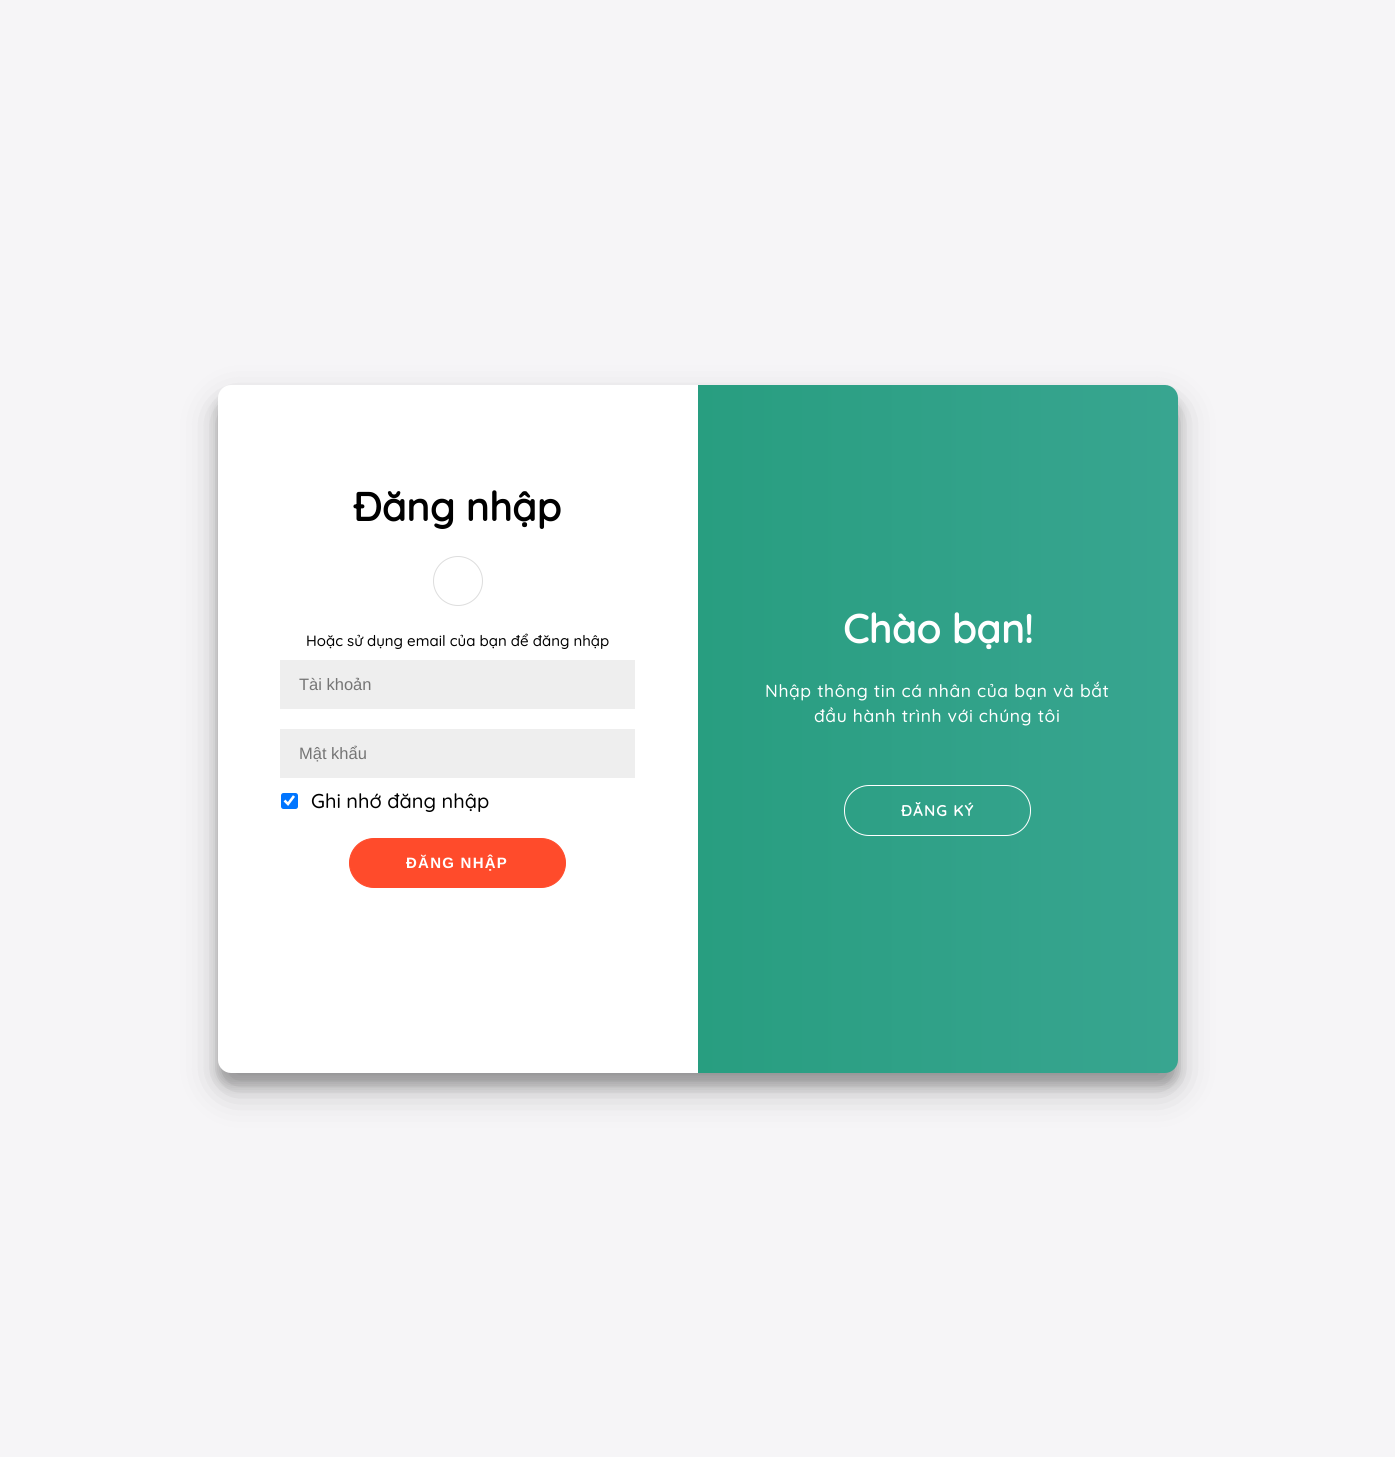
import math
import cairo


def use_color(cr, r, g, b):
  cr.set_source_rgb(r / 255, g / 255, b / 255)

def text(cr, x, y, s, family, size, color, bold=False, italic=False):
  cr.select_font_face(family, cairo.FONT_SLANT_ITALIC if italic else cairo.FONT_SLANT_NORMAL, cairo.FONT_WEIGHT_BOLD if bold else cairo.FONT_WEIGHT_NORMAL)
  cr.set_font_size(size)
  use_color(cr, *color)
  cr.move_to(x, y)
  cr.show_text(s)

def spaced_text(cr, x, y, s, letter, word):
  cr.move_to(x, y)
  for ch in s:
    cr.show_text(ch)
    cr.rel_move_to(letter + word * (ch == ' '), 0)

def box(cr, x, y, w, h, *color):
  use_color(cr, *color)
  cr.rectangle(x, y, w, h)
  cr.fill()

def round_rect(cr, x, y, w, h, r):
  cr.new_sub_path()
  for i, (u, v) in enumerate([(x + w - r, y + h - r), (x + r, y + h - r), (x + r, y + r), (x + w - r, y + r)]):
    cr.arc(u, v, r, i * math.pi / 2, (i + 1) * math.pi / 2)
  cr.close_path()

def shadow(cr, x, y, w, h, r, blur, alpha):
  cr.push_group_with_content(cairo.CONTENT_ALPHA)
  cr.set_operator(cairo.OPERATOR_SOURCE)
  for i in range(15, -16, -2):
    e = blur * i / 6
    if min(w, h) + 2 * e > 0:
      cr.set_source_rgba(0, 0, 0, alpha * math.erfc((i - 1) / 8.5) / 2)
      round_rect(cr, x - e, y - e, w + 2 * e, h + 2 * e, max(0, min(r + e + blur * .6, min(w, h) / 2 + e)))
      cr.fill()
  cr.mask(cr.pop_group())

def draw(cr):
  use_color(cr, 246, 245, 247)
  cr.paint()
  use_color(cr, 0, 0, 0)
  shadow(cr, 218, 398, 960, 687, 13, 6, 0.22)
  shadow(cr, 218, 403, 960, 687, 13, 17.5, 0.25)
  use_color(cr, 255, 255, 255)
  cr.new_path()
  cr.move_to(231, 385)
  cr.line_to(698, 385)
  cr.line_to(698, 1073)
  cr.line_to(231, 1073)
  cr.curve_to(224, 1073, 218, 1067, 218, 1060)
  cr.line_to(218, 398)
  cr.curve_to(218, 391, 224, 385, 231, 385)
  cr.close_path()
  cr.fill()
  cr.arc(458, 581, 24.5, 0, 2 * math.pi)
  use_color(cr, 221, 221, 221)
  cr.set_line_width(1)
  cr.stroke()
  box(cr, 280, 660, 355, 49, 238, 238, 238)
  box(cr, 280, 729, 355, 49, 238, 238, 238)
  use_color(cr, 0, 117, 255)
  round_rect(cr, 281, 793, 17, 16, 2.5)
  cr.fill()
  cr.new_path()
  cr.move_to(284.5, 800.5)
  cr.line_to(288, 804)
  cr.line_to(294, 796)
  use_color(cr, 255, 255, 255)
  cr.set_line_width(2.6)
  cr.stroke()
  use_color(cr, 255, 75, 43)
  round_rect(cr, 349.5, 838.5, 216, 49, 24.5)
  cr.fill_preserve()
  cr.set_line_width(1)
  cr.stroke()
  gradient = cairo.LinearGradient(218, 729, 1178, 729)
  gradient.add_color_stop_rgba(0, 0.094, 0.588, 0.439, 1)
  gradient.add_color_stop_rgba(1, 0.22, 0.647, 0.565, 1)
  cr.set_source(gradient)
  cr.new_path()
  cr.move_to(698, 385)
  cr.line_to(1165, 385)
  cr.curve_to(1172, 385, 1178, 391, 1178, 398)
  cr.line_to(1178, 1060)
  cr.curve_to(1178, 1067, 1172, 1073, 1165, 1073)
  cr.line_to(698, 1073)
  cr.close_path()
  cr.fill()
  round_rect(cr, 844.5, 785.5, 186, 50, 24.5)
  use_color(cr, 255, 255, 255)
  cr.stroke()
  text(cr, 353, 521, "Đăng nhập", "Quicksand", 40, (0, 0, 0), bold=True)
  text(cr, 306, 646, "Hoặc sử dụng email của bạn để đăng nhập", "Quicksand Light", 15, (0, 0, 0))
  text(cr, 299, 690, "Tài khoản", "Liberation Sans", 16.5, (117, 117, 117))
  text(cr, 299, 759, "Mật khẩu", "Liberation Sans", 16.5, (117, 117, 117))
  text(cr, 311, 808, "Ghi nhớ đăng nhập", "Quicksand Light", 20, (0, 0, 0))
  cr.select_font_face("Liberation Sans", cairo.FONT_SLANT_NORMAL, cairo.FONT_WEIGHT_BOLD)
  cr.set_font_size(15)
  use_color(cr, 255, 255, 255)
  spaced_text(cr, 406, 868, "ĐĂNG NHẬP", 1.25, 0)
  text(cr, 843, 643, "Chào bạn!", "Quicksand", 40, (255, 255, 255), bold=True)
  cr.select_font_face("Quicksand Light")
  cr.set_font_size(17.5)
  spaced_text(cr, 765, 697, "Nhập thông tin cá nhân của bạn và bắt", 0.6, 0)
  spaced_text(cr, 814, 722, "đầu hành trình với chúng tôi", 0.6, 0)
  cr.select_font_face("Quicksand", cairo.FONT_SLANT_NORMAL, cairo.FONT_WEIGHT_BOLD)
  cr.set_font_size(15)
  spaced_text(cr, 901, 816, "ĐĂNG KÝ", 1.25, 0)


surface = cairo.ImageSurface(cairo.FORMAT_RGB24, 1395, 1457)
cr = cairo.Context(surface)
options = cairo.FontOptions()
options.set_hint_metrics(cairo.HINT_METRICS_OFF)
options.set_hint_style(cairo.HINT_STYLE_NONE)
cr.set_font_options(options)
cr.set_miter_limit(4)
draw(cr)
surface.write_to_png("out.png")
